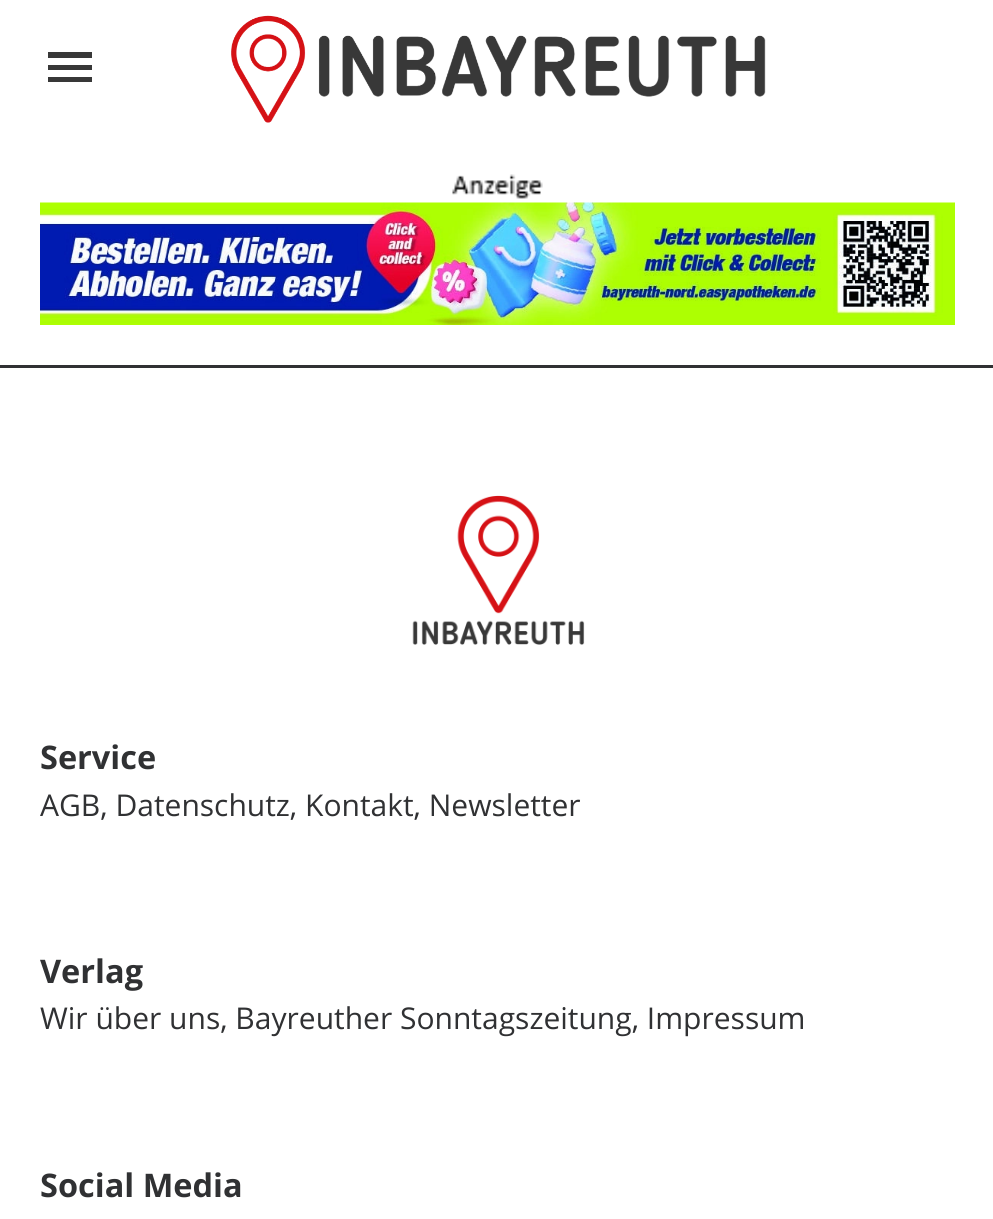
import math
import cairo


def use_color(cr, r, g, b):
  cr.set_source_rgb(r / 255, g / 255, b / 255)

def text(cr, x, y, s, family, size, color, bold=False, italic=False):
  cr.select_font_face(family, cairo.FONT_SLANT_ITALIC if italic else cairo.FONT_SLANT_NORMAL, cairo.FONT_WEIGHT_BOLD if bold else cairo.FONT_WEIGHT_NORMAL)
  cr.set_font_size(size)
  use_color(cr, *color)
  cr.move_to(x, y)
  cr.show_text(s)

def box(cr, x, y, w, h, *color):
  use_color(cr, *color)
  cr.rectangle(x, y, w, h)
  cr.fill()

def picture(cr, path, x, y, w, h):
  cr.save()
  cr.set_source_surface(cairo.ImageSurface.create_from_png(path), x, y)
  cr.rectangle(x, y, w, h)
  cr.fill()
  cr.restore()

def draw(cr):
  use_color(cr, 255, 255, 255)
  cr.paint()
  use_color(cr, 56, 56, 56)
  cr.new_path()
  cr.move_to(48, 52)
  cr.line_to(92, 52)
  cr.line_to(92, 58)
  cr.line_to(48, 58)
  cr.close_path()
  cr.move_to(48, 70)
  cr.line_to(48, 65)
  cr.line_to(92, 65)
  cr.line_to(92, 70)
  cr.close_path()
  cr.move_to(48, 82)
  cr.line_to(48, 77)
  cr.line_to(92, 77)
  cr.line_to(92, 82)
  cr.close_path()
  cr.fill()
  picture(cr, "img_01.png", 231, 15, 535, 108)
  picture(cr, "img_02.png", 452, 174, 91, 25)
  picture(cr, "img_03.png", 40, 202, 915, 123)
  box(cr, 0, 365, 993, 3, 48, 49, 51)
  picture(cr, "img_04.png", 412, 495, 173, 150)
  text(cr, 40, 769, "Service", "Open Sans", 32.5, (48, 49, 51), bold=True)
  text(cr, 40, 816, "AGB, Datenschutz, Kontakt, Newsletter", "Open Sans", 30, (48, 49, 51))
  text(cr, 40, 983, "Verlag", "Open Sans", 32.5, (48, 49, 51), bold=True)
  text(cr, 40, 1029, "Wir über uns, Bayreuther Sonntagszeitung, Impressum", "Open Sans", 30, (48, 49, 51))
  text(cr, 40, 1197, "Social Media", "Open Sans", 32.5, (48, 49, 51), bold=True)


surface = cairo.ImageSurface(cairo.FORMAT_RGB24, 993, 1219)
cr = cairo.Context(surface)
options = cairo.FontOptions()
options.set_hint_metrics(cairo.HINT_METRICS_OFF)
options.set_hint_style(cairo.HINT_STYLE_NONE)
cr.set_font_options(options)
cr.set_miter_limit(4)
draw(cr)
surface.write_to_png("out.png")
